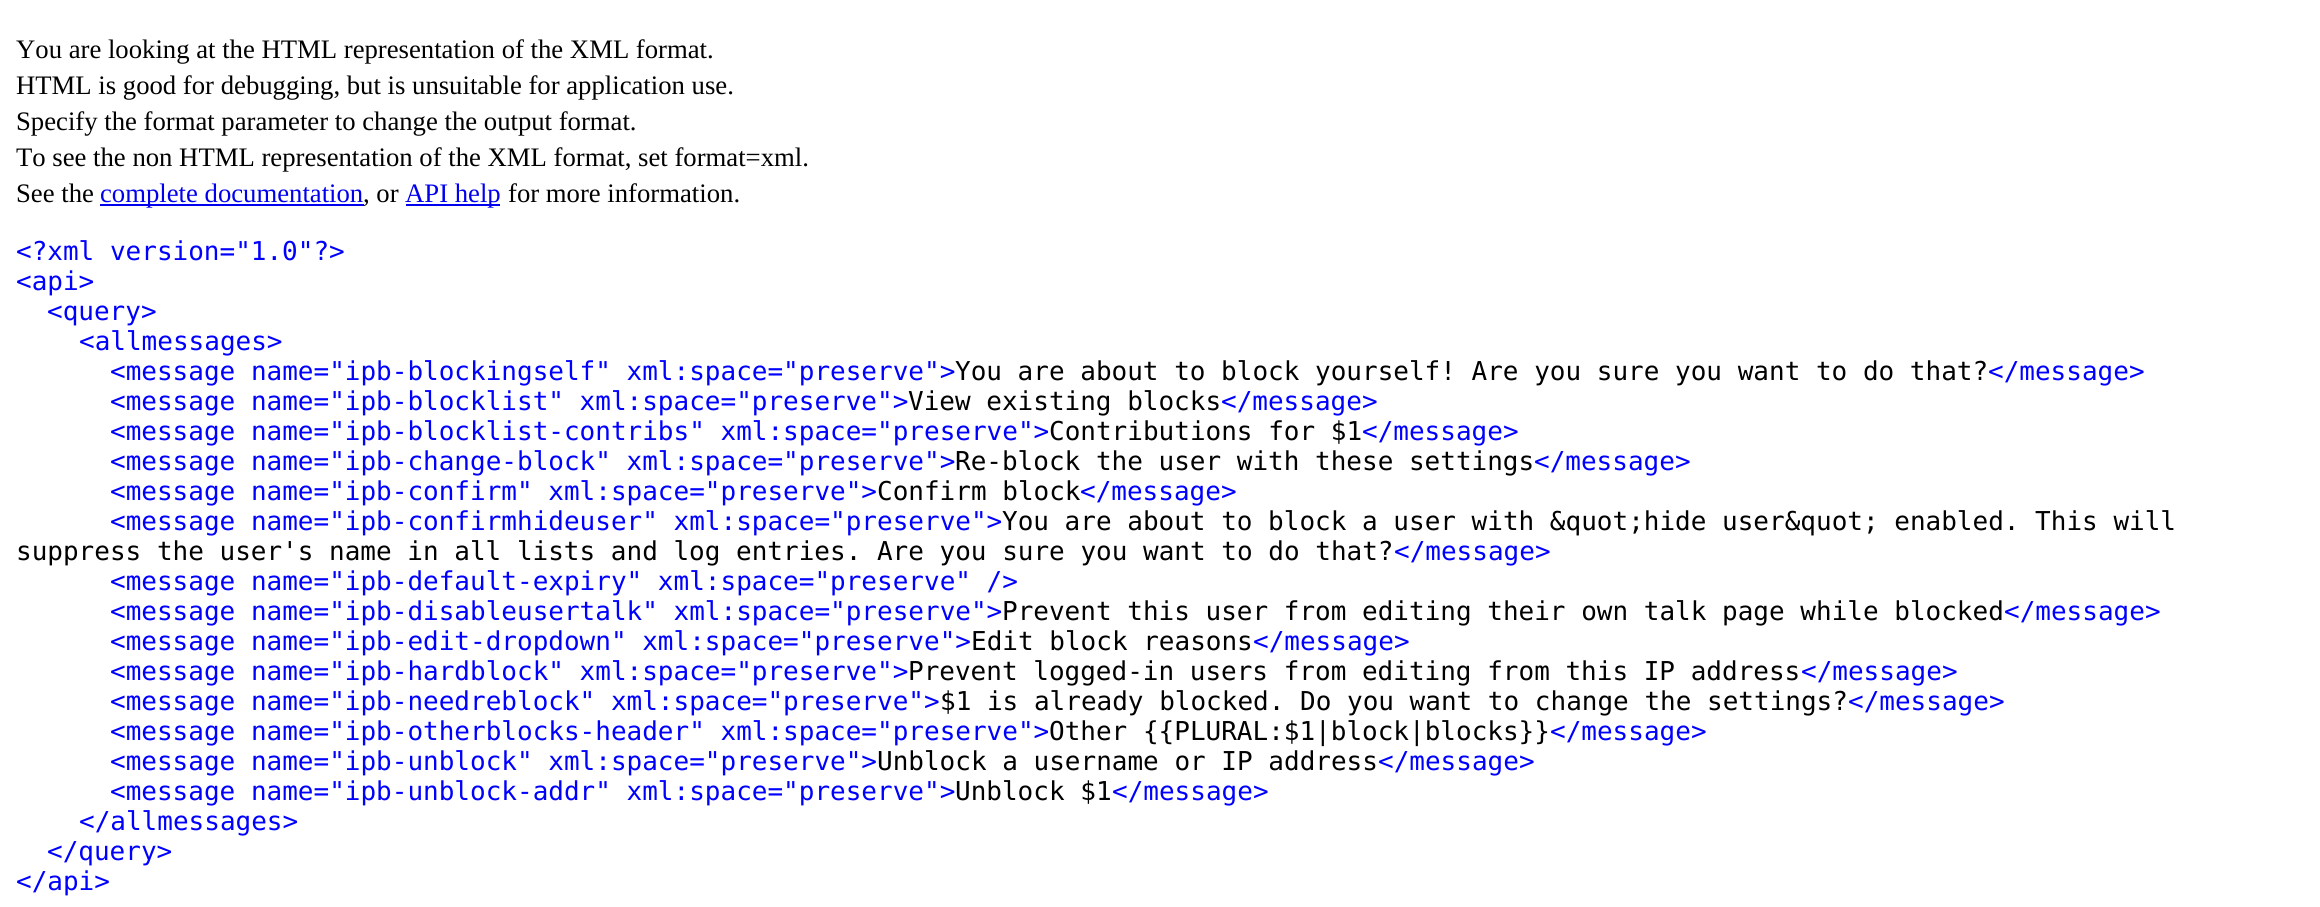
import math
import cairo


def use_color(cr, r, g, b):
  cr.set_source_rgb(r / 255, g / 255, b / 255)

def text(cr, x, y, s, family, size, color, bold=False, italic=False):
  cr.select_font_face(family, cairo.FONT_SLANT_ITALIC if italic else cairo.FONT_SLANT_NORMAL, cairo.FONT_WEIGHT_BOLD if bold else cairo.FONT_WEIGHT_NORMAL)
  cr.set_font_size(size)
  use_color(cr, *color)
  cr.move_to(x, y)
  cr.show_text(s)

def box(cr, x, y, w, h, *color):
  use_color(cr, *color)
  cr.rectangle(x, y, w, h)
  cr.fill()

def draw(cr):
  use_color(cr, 255, 255, 255)
  cr.paint()
  box(cr, 100, 204, 264, 2, 0, 0, 238)
  box(cr, 406, 204, 94, 2, 0, 0, 238)
  text(cr, 16, 58, "You are looking at the HTML representation of the XML format.", "Liberation Serif", 26.7, (0, 0, 0))
  text(cr, 16, 94, "HTML is good for debugging, but is unsuitable for application use.", "Liberation Serif", 26.7, (0, 0, 0))
  text(cr, 16, 130, "Specify the format parameter to change the output format.", "Liberation Serif", 26.7, (0, 0, 0))
  text(cr, 16, 166, "To see the non HTML representation of the XML format, set format=xml.", "Liberation Serif", 26.7, (0, 0, 0))
  text(cr, 16, 202, "See the", "Liberation Serif", 26.7, (0, 0, 0))
  text(cr, 100, 202, "complete documentation", "Liberation Serif", 26.7, (0, 0, 238))
  text(cr, 363, 202, ", or", "Liberation Serif", 26.7, (0, 0, 0))
  text(cr, 405, 202, "API help", "Liberation Serif", 26.7, (0, 0, 238))
  text(cr, 508, 202, "for more information.", "Liberation Serif", 26.7, (0, 0, 0))
  text(cr, 16, 260, "<?xml version=\"1.0\"?>", "DejaVu Sans Mono", 26, (0, 0, 255))
  text(cr, 16, 290, "<api>", "DejaVu Sans Mono", 26, (0, 0, 255))
  text(cr, 47, 320, "<query>", "DejaVu Sans Mono", 26, (0, 0, 255))
  text(cr, 79, 350, "<allmessages>", "DejaVu Sans Mono", 26, (0, 0, 255))
  text(cr, 110, 380, "<message name=\"ipb-blockingself\" xml:space=\"preserve\">", "DejaVu Sans Mono", 26, (0, 0, 255))
  text(cr, 955, 380, "You are about to block yourself! Are you sure you want to do that?", "DejaVu Sans Mono", 26, (0, 0, 0))
  text(cr, 1988, 380, "</message>", "DejaVu Sans Mono", 26, (0, 0, 255))
  text(cr, 110, 410, "<message name=\"ipb-blocklist\" xml:space=\"preserve\">", "DejaVu Sans Mono", 26, (0, 0, 255))
  text(cr, 908, 410, "View existing blocks", "DejaVu Sans Mono", 26, (0, 0, 0))
  text(cr, 1221, 410, "</message>", "DejaVu Sans Mono", 26, (0, 0, 255))
  text(cr, 110, 440, "<message name=\"ipb-blocklist-contribs\" xml:space=\"preserve\">", "DejaVu Sans Mono", 26, (0, 0, 255))
  text(cr, 1049, 440, "Contributions for $1", "DejaVu Sans Mono", 26, (0, 0, 0))
  text(cr, 1362, 440, "</message>", "DejaVu Sans Mono", 26, (0, 0, 255))
  text(cr, 110, 470, "<message name=\"ipb-change-block\" xml:space=\"preserve\">", "DejaVu Sans Mono", 26, (0, 0, 255))
  text(cr, 955, 470, "Re-block the user with these settings", "DejaVu Sans Mono", 26, (0, 0, 0))
  text(cr, 1534, 470, "</message>", "DejaVu Sans Mono", 26, (0, 0, 255))
  text(cr, 110, 500, "<message name=\"ipb-confirm\" xml:space=\"preserve\">", "DejaVu Sans Mono", 26, (0, 0, 255))
  text(cr, 877, 500, "Confirm block", "DejaVu Sans Mono", 26, (0, 0, 0))
  text(cr, 1080, 500, "</message>", "DejaVu Sans Mono", 26, (0, 0, 255))
  text(cr, 110, 530, "<message name=\"ipb-confirmhideuser\" xml:space=\"preserve\">", "DejaVu Sans Mono", 26, (0, 0, 255))
  text(cr, 1002, 530, "You are about to block a user with &quot;hide user&quot; enabled. This will", "DejaVu Sans Mono", 26, (0, 0, 0))
  text(cr, 16, 560, "suppress the user's name in all lists and log entries. Are you sure you want to do that?", "DejaVu Sans Mono", 26, (0, 0, 0))
  text(cr, 1394, 560, "</message>", "DejaVu Sans Mono", 26, (0, 0, 255))
  text(cr, 110, 590, "<message name=\"ipb-default-expiry\" xml:space=\"preserve\" />", "DejaVu Sans Mono", 26, (0, 0, 255))
  text(cr, 110, 620, "<message name=\"ipb-disableusertalk\" xml:space=\"preserve\">", "DejaVu Sans Mono", 26, (0, 0, 255))
  text(cr, 1002, 620, "Prevent this user from editing their own talk page while blocked", "DejaVu Sans Mono", 26, (0, 0, 0))
  text(cr, 2004, 620, "</message>", "DejaVu Sans Mono", 26, (0, 0, 255))
  text(cr, 110, 650, "<message name=\"ipb-edit-dropdown\" xml:space=\"preserve\">", "DejaVu Sans Mono", 26, (0, 0, 255))
  text(cr, 971, 650, "Edit block reasons", "DejaVu Sans Mono", 26, (0, 0, 0))
  text(cr, 1253, 650, "</message>", "DejaVu Sans Mono", 26, (0, 0, 255))
  text(cr, 110, 680, "<message name=\"ipb-hardblock\" xml:space=\"preserve\">", "DejaVu Sans Mono", 26, (0, 0, 255))
  text(cr, 908, 680, "Prevent logged-in users from editing from this IP address", "DejaVu Sans Mono", 26, (0, 0, 0))
  text(cr, 1801, 680, "</message>", "DejaVu Sans Mono", 26, (0, 0, 255))
  text(cr, 110, 710, "<message name=\"ipb-needreblock\" xml:space=\"preserve\">", "DejaVu Sans Mono", 26, (0, 0, 255))
  text(cr, 940, 710, "$1 is already blocked. Do you want to change the settings?", "DejaVu Sans Mono", 26, (0, 0, 0))
  text(cr, 1848, 710, "</message>", "DejaVu Sans Mono", 26, (0, 0, 255))
  text(cr, 110, 740, "<message name=\"ipb-otherblocks-header\" xml:space=\"preserve\">", "DejaVu Sans Mono", 26, (0, 0, 255))
  text(cr, 1049, 740, "Other {{PLURAL:$1|block|blocks}}", "DejaVu Sans Mono", 26, (0, 0, 0))
  text(cr, 1550, 740, "</message>", "DejaVu Sans Mono", 26, (0, 0, 255))
  text(cr, 110, 770, "<message name=\"ipb-unblock\" xml:space=\"preserve\">", "DejaVu Sans Mono", 26, (0, 0, 255))
  text(cr, 877, 770, "Unblock a username or IP address", "DejaVu Sans Mono", 26, (0, 0, 0))
  text(cr, 1378, 770, "</message>", "DejaVu Sans Mono", 26, (0, 0, 255))
  text(cr, 110, 800, "<message name=\"ipb-unblock-addr\" xml:space=\"preserve\">", "DejaVu Sans Mono", 26, (0, 0, 255))
  text(cr, 955, 800, "Unblock $1", "DejaVu Sans Mono", 26, (0, 0, 0))
  text(cr, 1112, 800, "</message>", "DejaVu Sans Mono", 26, (0, 0, 255))
  text(cr, 79, 830, "</allmessages>", "DejaVu Sans Mono", 26, (0, 0, 255))
  text(cr, 47, 860, "</query>", "DejaVu Sans Mono", 26, (0, 0, 255))
  text(cr, 16, 890, "</api>", "DejaVu Sans Mono", 26, (0, 0, 255))


surface = cairo.ImageSurface(cairo.FORMAT_RGB24, 2320, 907)
cr = cairo.Context(surface)
options = cairo.FontOptions()
options.set_hint_metrics(cairo.HINT_METRICS_OFF)
options.set_hint_style(cairo.HINT_STYLE_NONE)
cr.set_font_options(options)
cr.set_miter_limit(4)
draw(cr)
surface.write_to_png("out.png")
